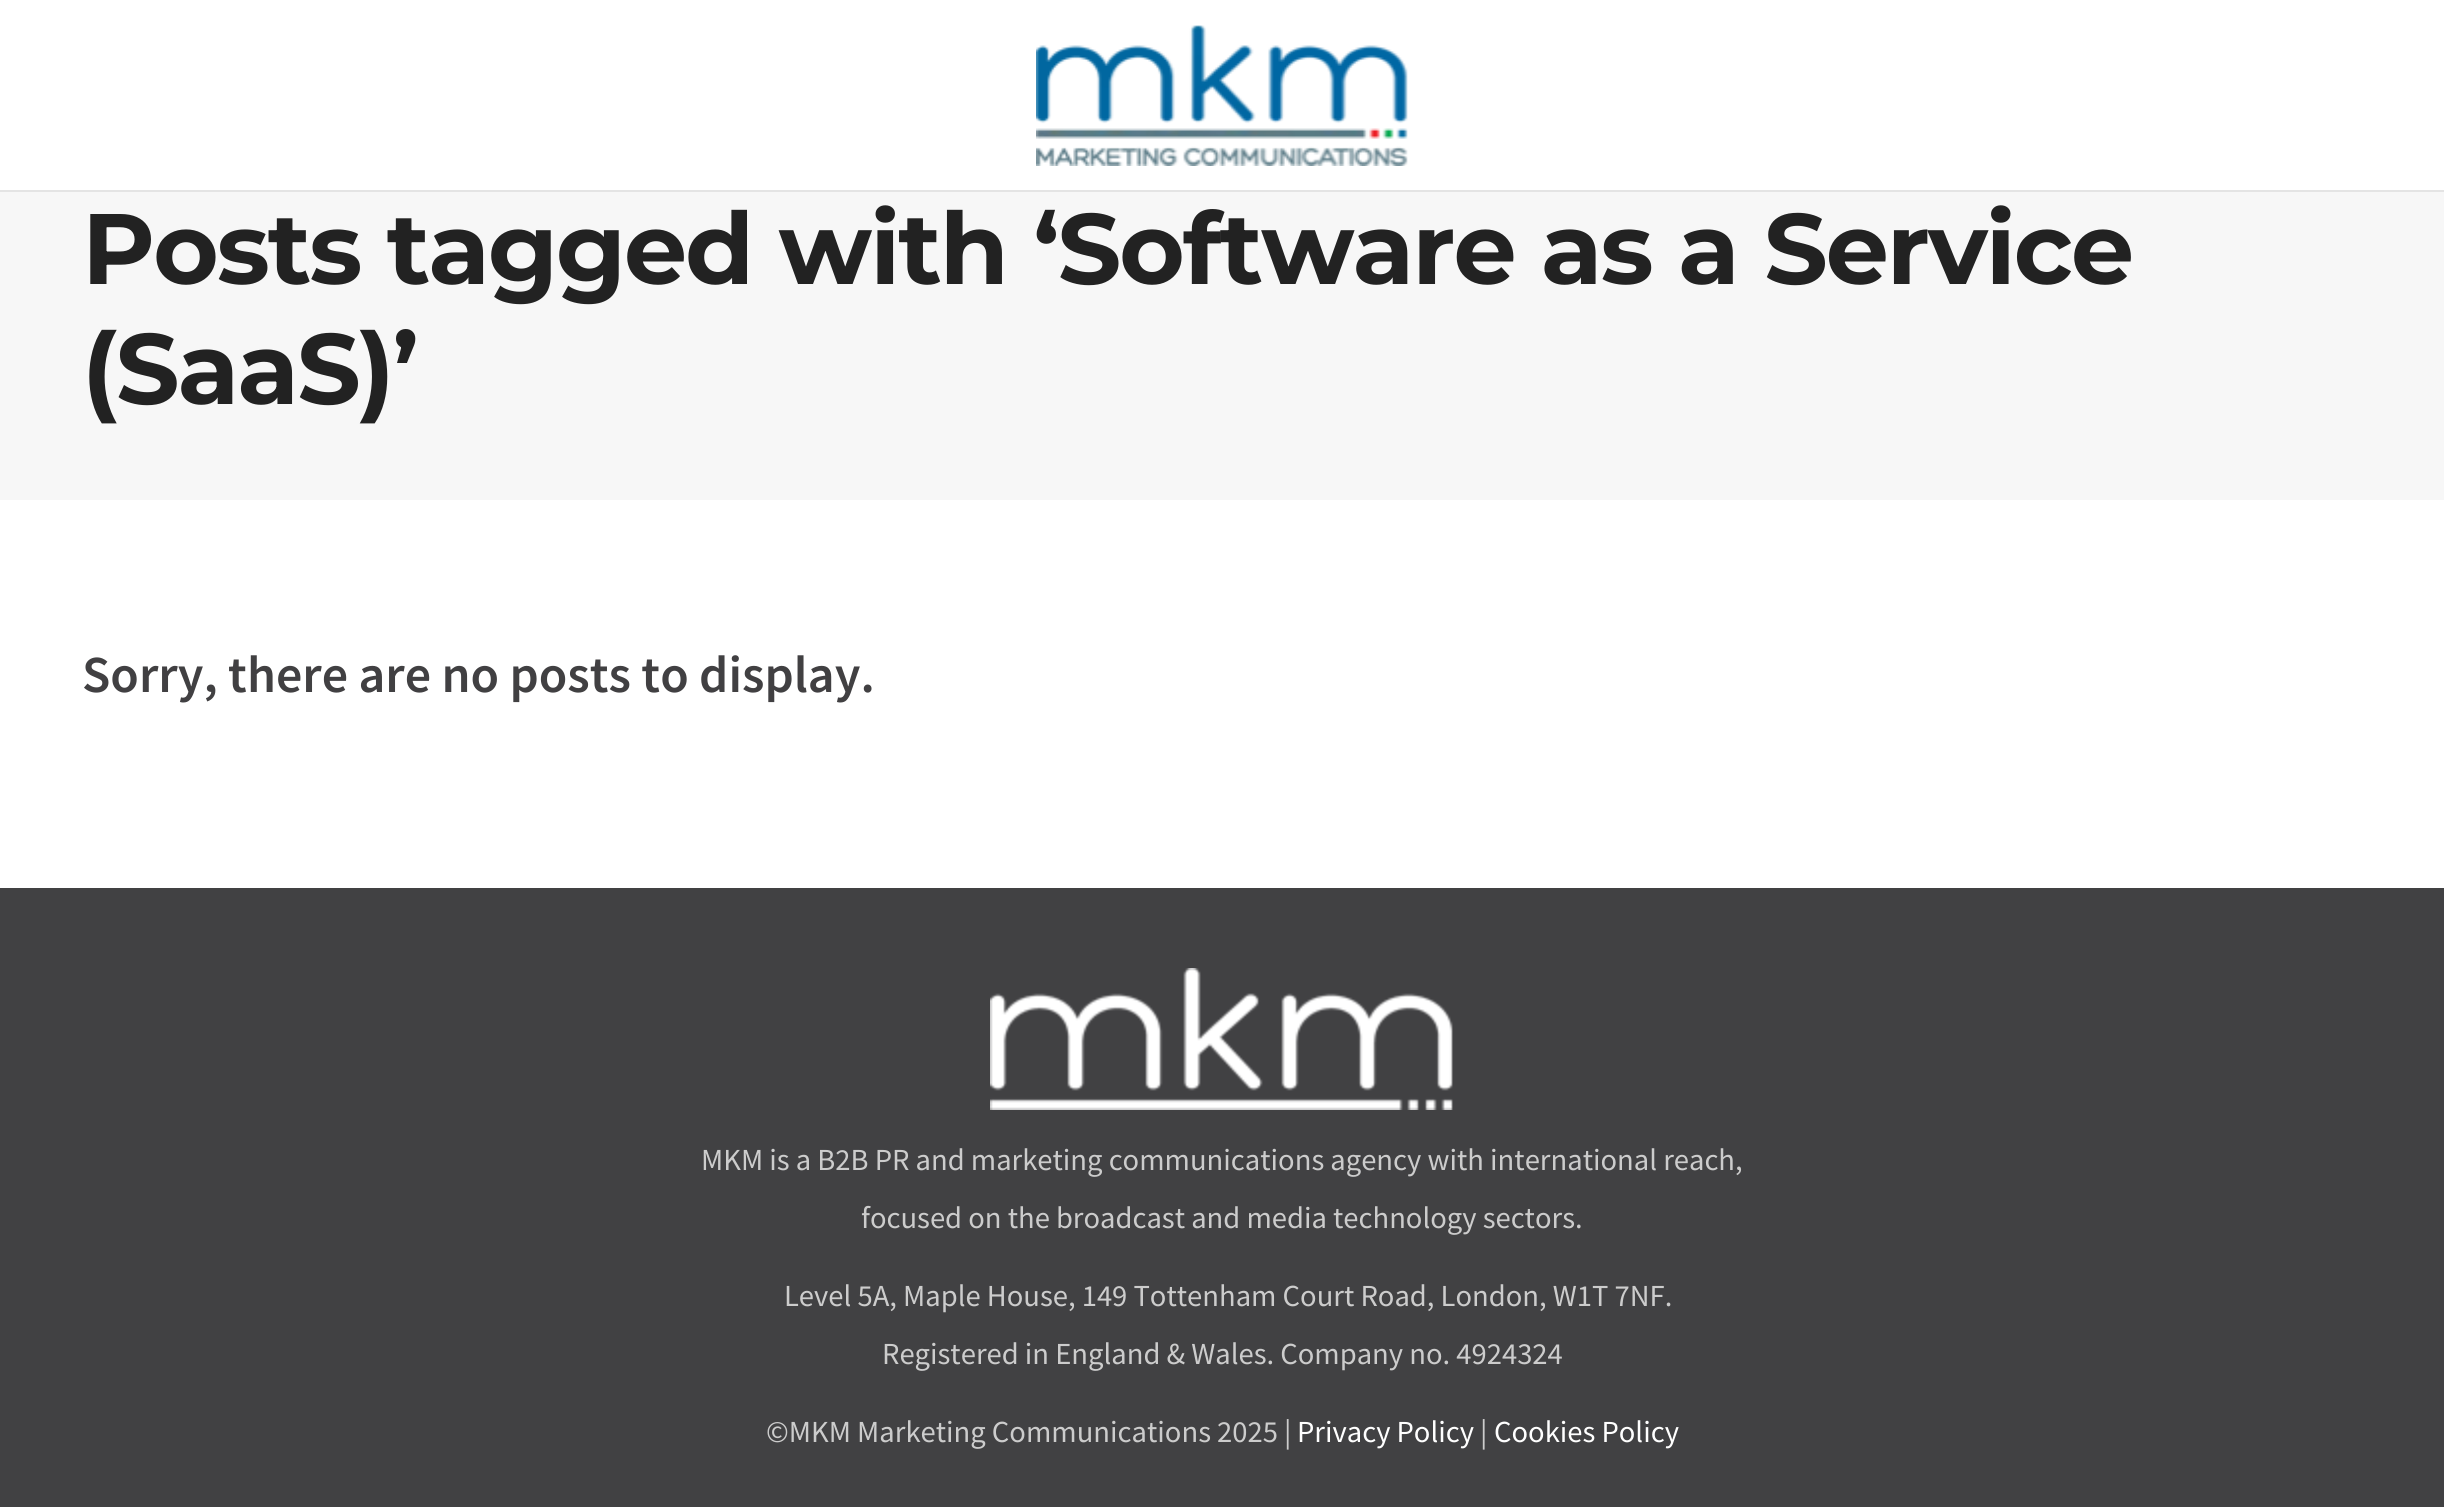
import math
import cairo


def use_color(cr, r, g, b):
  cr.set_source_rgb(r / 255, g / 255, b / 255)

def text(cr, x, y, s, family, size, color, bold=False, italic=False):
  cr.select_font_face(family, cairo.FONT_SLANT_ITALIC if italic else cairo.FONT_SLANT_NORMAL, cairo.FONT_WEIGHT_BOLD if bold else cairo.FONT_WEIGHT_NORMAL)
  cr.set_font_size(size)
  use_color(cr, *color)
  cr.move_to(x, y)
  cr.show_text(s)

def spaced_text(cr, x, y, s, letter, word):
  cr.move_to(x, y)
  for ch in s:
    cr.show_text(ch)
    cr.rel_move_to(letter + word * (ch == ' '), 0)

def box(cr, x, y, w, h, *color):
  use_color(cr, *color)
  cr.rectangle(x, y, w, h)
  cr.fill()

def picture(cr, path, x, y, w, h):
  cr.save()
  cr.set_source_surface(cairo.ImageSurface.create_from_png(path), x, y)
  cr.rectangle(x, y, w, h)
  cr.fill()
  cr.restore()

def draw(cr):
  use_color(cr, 255, 255, 255)
  cr.paint()
  box(cr, 0, 190, 2444, 2, 228, 228, 228)
  picture(cr, "img_01.png", 1036, 25, 372, 141)
  box(cr, 0, 192, 2444, 308, 247, 247, 247)
  box(cr, 0, 888, 2444, 619, 65, 65, 67)
  picture(cr, "img_02.png", 990, 968, 463, 142)
  cr.select_font_face("Montserrat Thin")
  cr.set_font_size(100)
  use_color(cr, 34, 34, 34)
  spaced_text(cr, 82, 284, "Posts tagged with ‘Software as a Service", -2, 0)
  spaced_text(cr, 82, 404, "(SaaS)’", -2, 0)
  text(cr, 82, 692, "Sorry, there are no posts to display.", "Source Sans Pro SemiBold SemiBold", 52, (65, 64, 66))
  text(cr, 701, 1170, "MKM is a B2B PR and marketing communications agency with international reach,", "Source Sans Pro", 30.6, (204, 204, 204))
  text(cr, 861, 1228, "focused on the broadcast and media technology sectors.", "Source Sans Pro", 30.6, (204, 204, 204))
  text(cr, 784, 1306, "Level 5A, Maple House, 149 Tottenham Court Road, London, W1T 7NF.", "Source Sans Pro", 30.6, (204, 204, 204))
  text(cr, 882, 1364, "Registered in England & Wales. Company no. 4924324", "Source Sans Pro", 30.6, (204, 204, 204))
  text(cr, 766, 1442, "©MKM Marketing Communications 2025 |", "Source Sans Pro", 30.6, (204, 204, 204))
  text(cr, 1297, 1442, "Privacy Policy", "Source Sans Pro", 30.6, (255, 255, 255))
  text(cr, 1480, 1442, "|", "Source Sans Pro", 30.6, (204, 204, 204))
  text(cr, 1494, 1442, "Cookies Policy", "Source Sans Pro", 30.6, (255, 255, 255))


surface = cairo.ImageSurface(cairo.FORMAT_RGB24, 2444, 1507)
cr = cairo.Context(surface)
options = cairo.FontOptions()
options.set_hint_metrics(cairo.HINT_METRICS_OFF)
options.set_hint_style(cairo.HINT_STYLE_NONE)
cr.set_font_options(options)
cr.set_miter_limit(4)
draw(cr)
surface.write_to_png("out.png")
